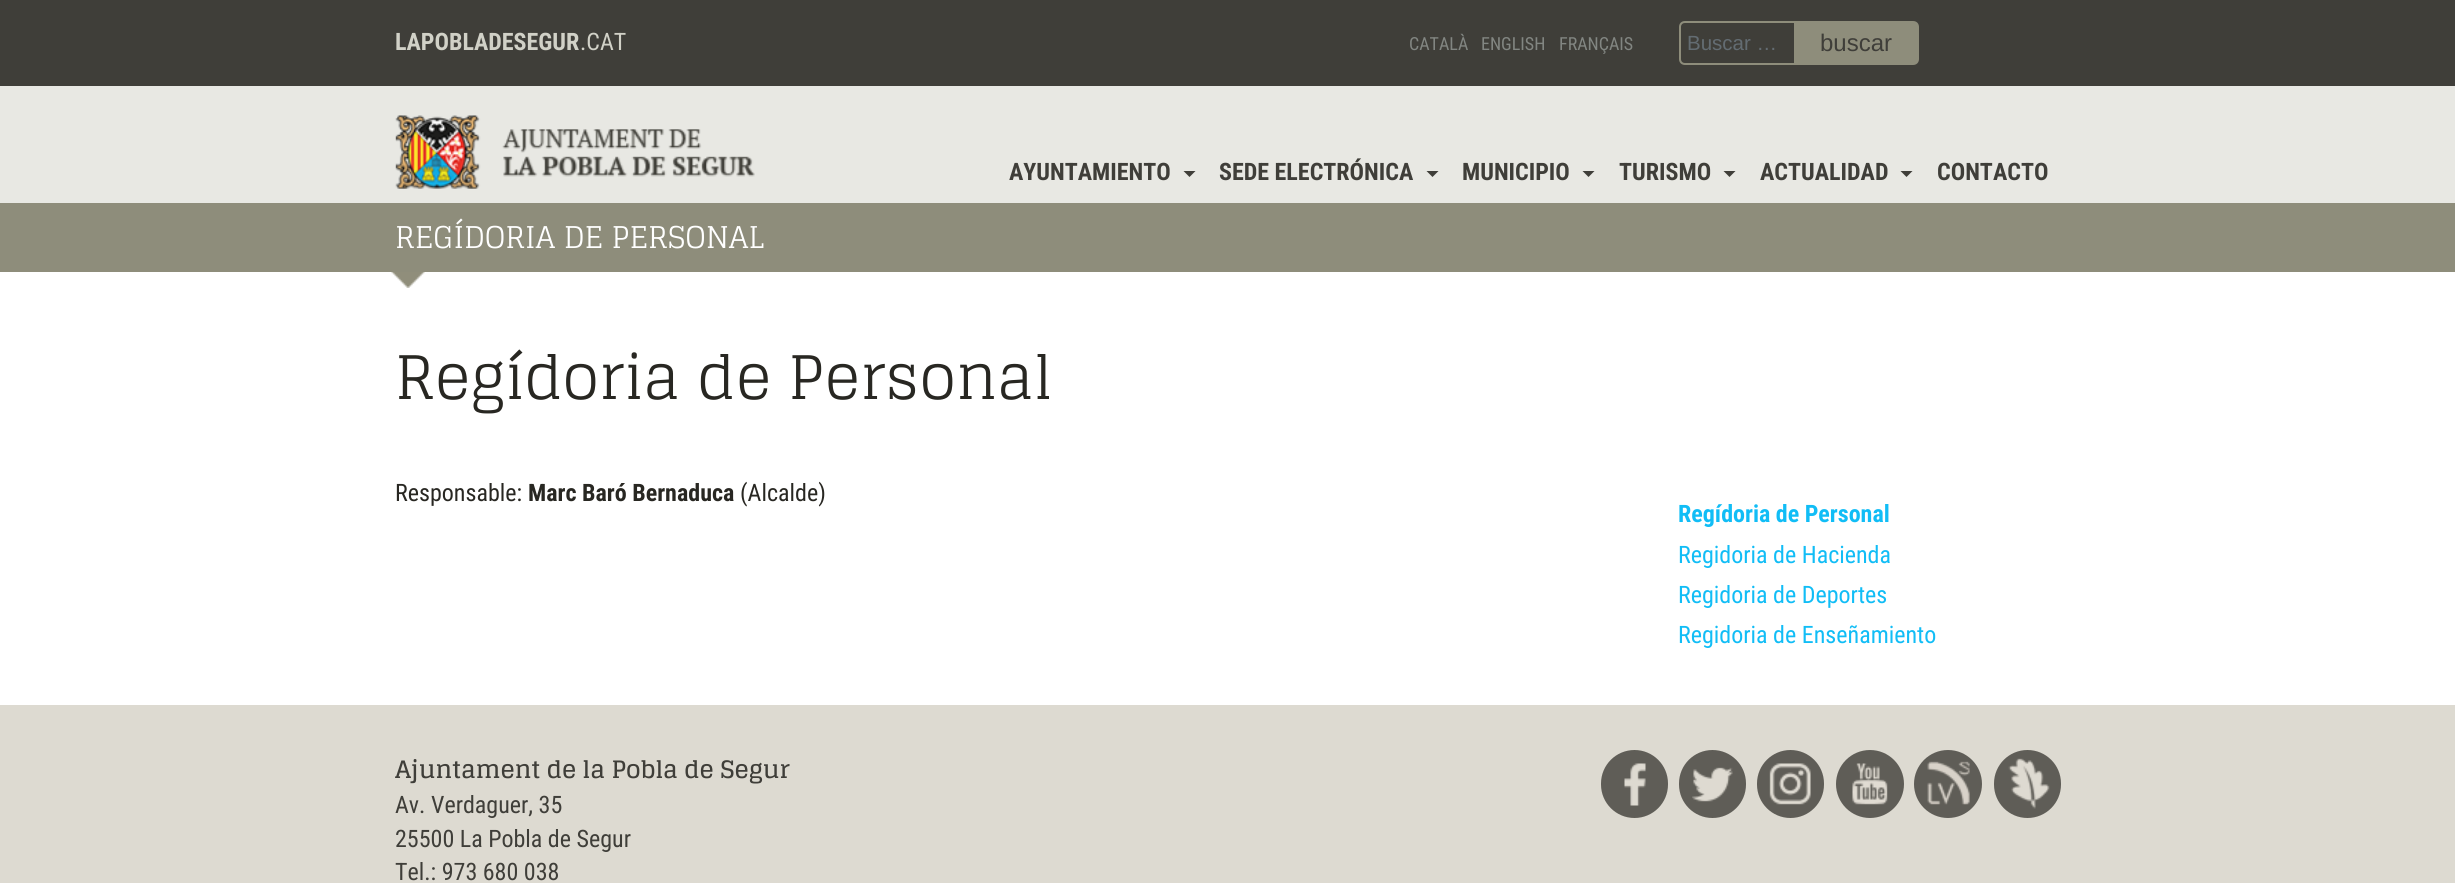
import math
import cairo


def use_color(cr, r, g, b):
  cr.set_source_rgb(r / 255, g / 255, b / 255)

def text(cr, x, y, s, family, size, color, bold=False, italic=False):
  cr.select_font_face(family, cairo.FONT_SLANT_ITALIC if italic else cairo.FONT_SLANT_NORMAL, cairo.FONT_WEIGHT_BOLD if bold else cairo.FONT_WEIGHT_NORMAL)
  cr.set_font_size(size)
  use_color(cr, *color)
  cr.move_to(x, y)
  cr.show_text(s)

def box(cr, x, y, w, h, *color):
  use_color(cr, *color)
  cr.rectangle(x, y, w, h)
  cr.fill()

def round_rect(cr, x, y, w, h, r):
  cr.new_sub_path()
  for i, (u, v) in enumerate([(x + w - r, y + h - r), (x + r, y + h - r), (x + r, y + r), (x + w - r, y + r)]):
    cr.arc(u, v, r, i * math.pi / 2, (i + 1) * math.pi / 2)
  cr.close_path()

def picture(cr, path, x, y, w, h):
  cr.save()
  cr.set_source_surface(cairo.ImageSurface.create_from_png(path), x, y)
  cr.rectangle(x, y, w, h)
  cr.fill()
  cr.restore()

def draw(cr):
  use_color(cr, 255, 255, 255)
  cr.paint()
  box(cr, 0, 0, 2455, 86, 63, 62, 57)
  cr.new_path()
  cr.move_to(1685, 22)
  cr.line_to(1795, 22)
  cr.line_to(1795, 64)
  cr.line_to(1685, 64)
  cr.curve_to(1682, 64, 1680, 62, 1680, 59)
  cr.line_to(1680, 27)
  cr.curve_to(1680, 24, 1682, 22, 1685, 22)
  cr.close_path()
  use_color(cr, 142, 141, 123)
  cr.stroke()
  cr.new_path()
  cr.move_to(1795, 22)
  cr.line_to(1913, 22)
  cr.curve_to(1916, 22, 1918, 24, 1918, 27)
  cr.line_to(1918, 59)
  cr.curve_to(1918, 62, 1916, 64, 1913, 64)
  cr.line_to(1795, 64)
  cr.close_path()
  cr.fill_preserve()
  cr.stroke()
  box(cr, 0, 86, 2455, 117, 232, 232, 227)
  picture(cr, "img_01.png", 395, 115, 360, 74)
  use_color(cr, 63, 62, 57)
  cr.new_path()
  cr.move_to(1183.5, 171)
  cr.line_to(1195.5, 171)
  cr.line_to(1189.5, 177)
  cr.close_path()
  cr.fill()
  cr.new_path()
  cr.move_to(1426.5, 171)
  cr.line_to(1438.5, 171)
  cr.line_to(1432.5, 177)
  cr.close_path()
  cr.fill()
  cr.new_path()
  cr.move_to(1582.5, 171)
  cr.line_to(1594.5, 171)
  cr.line_to(1588.5, 177)
  cr.close_path()
  cr.fill()
  cr.new_path()
  cr.move_to(1723.5, 171)
  cr.line_to(1735.5, 171)
  cr.line_to(1729.5, 177)
  cr.close_path()
  cr.fill()
  cr.new_path()
  cr.move_to(1900.5, 171)
  cr.line_to(1912.5, 171)
  cr.line_to(1906.5, 177)
  cr.close_path()
  cr.fill()
  box(cr, 0, 203, 2455, 69, 142, 141, 123)
  picture(cr, "img_02.png", 391, 272, 34, 16)
  box(cr, 0, 705, 2455, 178, 221, 218, 209)
  use_color(cr, 95, 93, 87)
  round_rect(cr, 1601, 750, 67, 68, 33.5)
  cr.fill()
  picture(cr, "img_03.png", 1624, 763, 22, 43)
  round_rect(cr, 1679, 750, 67, 68, 33.5)
  cr.fill()
  picture(cr, "img_04.png", 1692, 767, 41, 35)
  round_rect(cr, 1757, 750, 67, 68, 33.5)
  cr.fill()
  picture(cr, "img_05.png", 1769, 763, 42, 42)
  cr.arc(1870, 784, 34, 0, 2 * math.pi)
  cr.fill()
  picture(cr, "img_06.png", 1852, 763, 36, 42)
  cr.arc(1948, 784, 34, 0, 2 * math.pi)
  cr.fill()
  picture(cr, "img_07.png", 1927, 761, 43, 44)
  round_rect(cr, 1994, 750, 67, 68, 33.5)
  cr.fill()
  picture(cr, "img_08.png", 2008, 758, 42, 51)
  text(cr, 395, 50, "LAPOBLADESEGUR", "Roboto Condensed", 24, (209, 209, 199), bold=True)
  text(cr, 580, 50, ".CAT", "Roboto Condensed", 24, (209, 209, 199))
  text(cr, 1409, 50, "CATALÀ", "Roboto Condensed", 18, (130, 134, 130))
  text(cr, 1481, 50, "ENGLISH", "Roboto Condensed", 18, (130, 134, 130))
  text(cr, 1559, 50, "FRANÇAIS", "Roboto Condensed", 18, (130, 134, 130))
  text(cr, 1687, 50, "Buscar …", "Liberation Sans", 20.5, (99, 108, 114))
  text(cr, 1820, 51, "buscar", "Liberation Sans", 24, (63, 62, 57))
  text(cr, 1009, 180, "AYUNTAMIENTO", "Roboto Condensed", 24, (63, 62, 57), bold=True)
  text(cr, 1219, 180, "SEDE ELECTRÓNICA", "Roboto Condensed", 24, (63, 62, 57), bold=True)
  text(cr, 1462, 180, "MUNICIPIO", "Roboto Condensed", 24, (63, 62, 57), bold=True)
  text(cr, 1619, 180, "TURISMO", "Roboto Condensed", 24, (63, 62, 57), bold=True)
  text(cr, 1760, 180, "ACTUALIDAD", "Roboto Condensed", 24, (63, 62, 57), bold=True)
  text(cr, 1937, 180, "CONTACTO", "Roboto Condensed", 24, (63, 62, 57), bold=True)
  text(cr, 395, 248, "REGÍDORIA DE PERSONAL", "Glegoo", 30, (255, 255, 255))
  text(cr, 395, 399, "Regídoria de Personal", "Glegoo", 60, (40, 39, 34))
  text(cr, 395, 501, "Responsable:", "Roboto Condensed", 24, (40, 39, 34))
  text(cr, 528, 501, "Marc Baró Bernaduca", "Roboto Condensed", 24, (40, 39, 34), bold=True)
  text(cr, 740, 501, "(Alcalde)", "Roboto Condensed", 24, (40, 39, 34))
  text(cr, 1678, 522, "Regídoria de Personal", "Roboto Condensed", 24, (17, 189, 246), bold=True)
  text(cr, 1678, 563, "Regidoria de Hacienda", "Roboto Condensed", 24, (17, 189, 246))
  text(cr, 1678, 603, "Regidoria de Deportes", "Roboto Condensed", 24, (17, 189, 246))
  text(cr, 1678, 643, "Regidoria de Enseñamiento", "Roboto Condensed", 24, (17, 189, 246))
  text(cr, 395, 778, "Ajuntament de la Pobla de Segur", "Glegoo", 24, (63, 62, 57), bold=True)
  text(cr, 395, 813, "Av. Verdaguer, 35", "Roboto Condensed", 24, (63, 62, 57))
  text(cr, 395, 847, "25500 La Pobla de Segur", "Roboto Condensed", 24, (63, 62, 57))
  text(cr, 395, 880, "Tel.: 973 680 038", "Roboto Condensed", 24, (63, 62, 57))


surface = cairo.ImageSurface(cairo.FORMAT_RGB24, 2455, 883)
cr = cairo.Context(surface)
options = cairo.FontOptions()
options.set_hint_metrics(cairo.HINT_METRICS_OFF)
options.set_hint_style(cairo.HINT_STYLE_NONE)
cr.set_font_options(options)
cr.set_miter_limit(4)
draw(cr)
surface.write_to_png("out.png")
